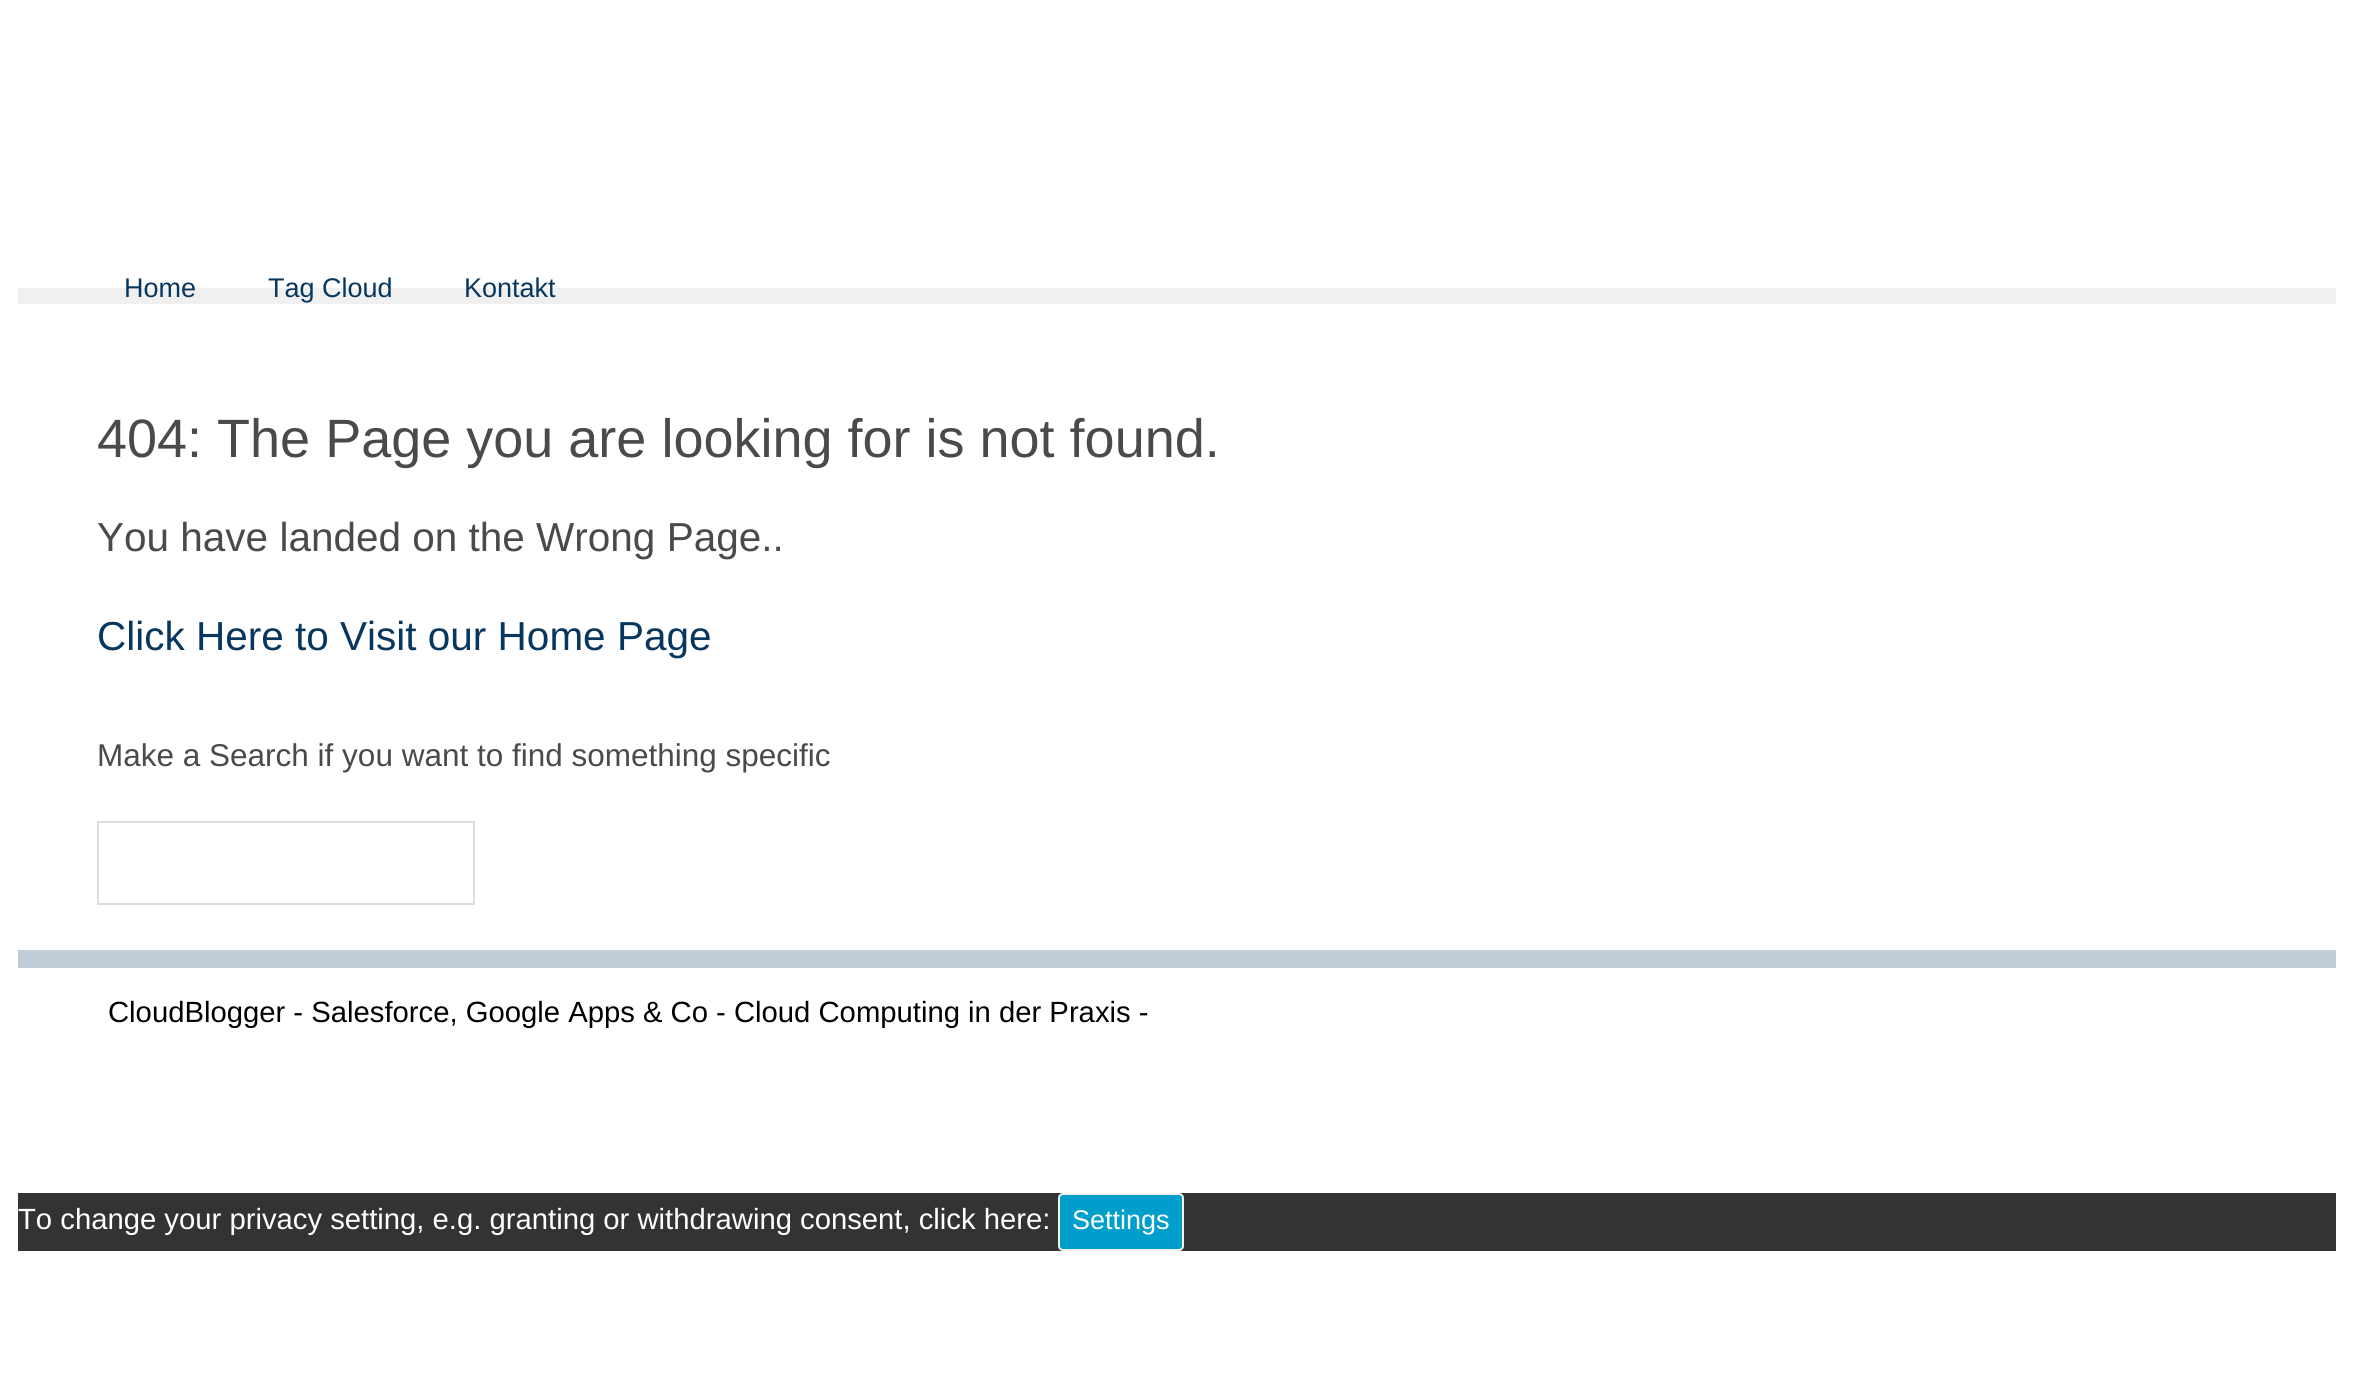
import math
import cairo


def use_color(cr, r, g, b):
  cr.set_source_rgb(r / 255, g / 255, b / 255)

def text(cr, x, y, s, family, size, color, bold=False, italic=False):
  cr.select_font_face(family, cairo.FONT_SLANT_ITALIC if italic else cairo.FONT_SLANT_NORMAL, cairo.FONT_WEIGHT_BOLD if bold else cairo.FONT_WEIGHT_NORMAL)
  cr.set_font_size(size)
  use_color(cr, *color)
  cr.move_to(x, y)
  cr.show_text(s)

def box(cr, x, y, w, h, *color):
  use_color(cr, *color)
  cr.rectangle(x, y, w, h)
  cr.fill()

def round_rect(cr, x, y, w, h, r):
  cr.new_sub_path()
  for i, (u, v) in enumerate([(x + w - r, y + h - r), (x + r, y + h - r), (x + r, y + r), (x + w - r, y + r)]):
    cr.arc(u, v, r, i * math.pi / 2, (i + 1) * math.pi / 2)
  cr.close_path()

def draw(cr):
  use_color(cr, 255, 255, 255)
  cr.paint()
  box(cr, 18, 288, 2318, 16, 240, 240, 240)
  cr.rectangle(98, 822, 376, 82)
  use_color(cr, 221, 221, 221)
  cr.stroke()
  box(cr, 18, 950, 2318, 18, 193, 205, 215)
  box(cr, 18, 1193, 2318, 58, 51, 51, 51)
  use_color(cr, 0, 158, 203)
  round_rect(cr, 1059, 1194, 124, 56, 4)
  cr.fill_preserve()
  use_color(cr, 243, 243, 243)
  cr.stroke()
  text(cr, 124, 297, "Home", "Liberation Sans", 27, (7, 54, 95))
  text(cr, 268, 297, "Tag Cloud", "Liberation Sans", 27, (7, 54, 95))
  text(cr, 464, 297, "Kontakt", "Liberation Sans", 27, (7, 54, 95))
  text(cr, 97, 457, "404: The Page you are looking for is not found.", "Liberation Sans", 54, (74, 74, 74))
  text(cr, 97, 551, "You have landed on the Wrong Page..", "Liberation Sans", 40.5, (74, 74, 74))
  text(cr, 97, 650, "Click Here to Visit our Home Page", "Liberation Sans", 40.5, (7, 54, 95))
  text(cr, 97, 766, "Make a Search if you want to find something specific", "Liberation Sans", 31.5, (74, 74, 74))
  text(cr, 108, 1022, "CloudBlogger - Salesforce, Google Apps & Co - Cloud Computing in der Praxis -", "Liberation Sans", 29.25, (0, 0, 0))
  text(cr, 18, 1229, "To change your privacy setting, e.g. granting or withdrawing consent, click here:", "Liberation Sans", 29.25, (255, 255, 255))
  text(cr, 1072, 1229, "Settings", "Liberation Sans", 27, (255, 255, 255))


surface = cairo.ImageSurface(cairo.FORMAT_RGB24, 2353, 1385)
cr = cairo.Context(surface)
options = cairo.FontOptions()
options.set_hint_metrics(cairo.HINT_METRICS_OFF)
options.set_hint_style(cairo.HINT_STYLE_NONE)
cr.set_font_options(options)
cr.set_miter_limit(4)
draw(cr)
surface.write_to_png("out.png")
